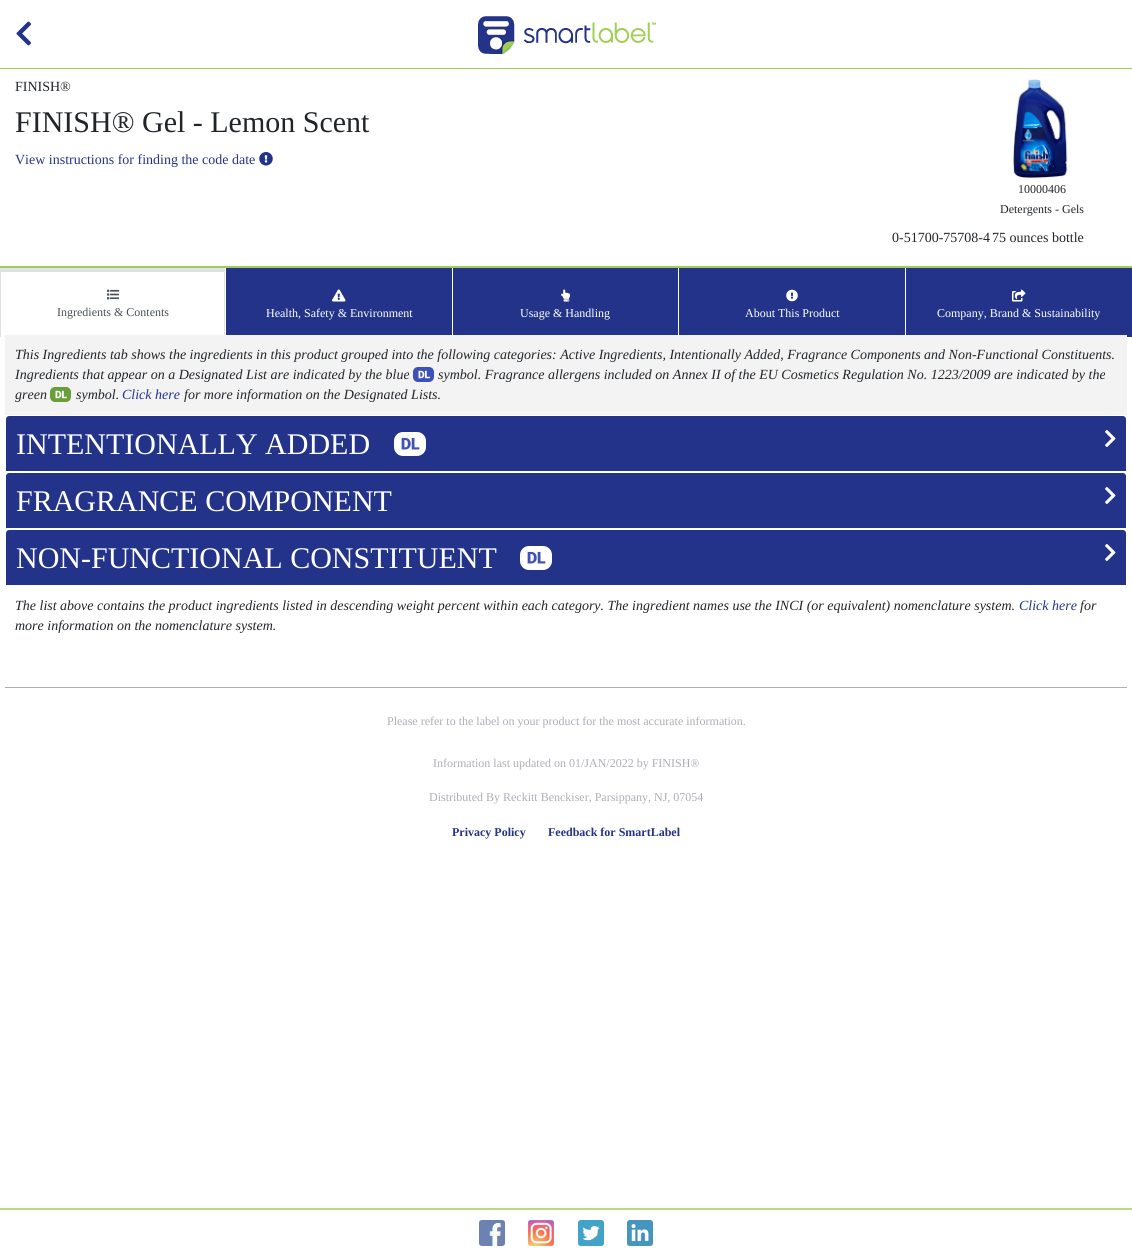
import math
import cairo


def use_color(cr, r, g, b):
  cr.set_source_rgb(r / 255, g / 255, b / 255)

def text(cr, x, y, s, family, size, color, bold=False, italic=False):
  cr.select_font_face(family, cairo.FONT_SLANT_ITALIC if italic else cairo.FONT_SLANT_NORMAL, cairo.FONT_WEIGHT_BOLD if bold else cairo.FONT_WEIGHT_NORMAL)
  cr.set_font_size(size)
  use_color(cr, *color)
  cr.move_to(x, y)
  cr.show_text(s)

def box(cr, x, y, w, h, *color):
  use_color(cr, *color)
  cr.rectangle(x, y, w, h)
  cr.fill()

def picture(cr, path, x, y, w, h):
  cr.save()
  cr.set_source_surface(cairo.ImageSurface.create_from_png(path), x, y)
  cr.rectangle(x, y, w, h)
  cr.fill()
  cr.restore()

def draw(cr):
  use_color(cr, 255, 255, 255)
  cr.paint()
  box(cr, 0, 68, 1132, 1, 160, 205, 84)
  picture(cr, "img_01.png", 16, 21, 15, 25)
  picture(cr, "img_02.png", 478, 16, 178, 38)
  picture(cr, "img_03.png", 259, 152, 14, 14)
  picture(cr, "img_04.png", 1013, 79, 55, 100)
  box(cr, 0, 266, 1132, 2, 160, 205, 84)
  box(cr, 0, 268, 225, 4, 222, 226, 230)
  box(cr, 224, 268, 1, 69, 222, 226, 230)
  box(cr, 0, 268, 1, 69, 222, 226, 230)
  picture(cr, "img_05.png", 107, 289, 12, 11)
  box(cr, 226, 268, 226, 67, 36, 51, 138)
  picture(cr, "img_06.png", 332, 289, 14, 13)
  box(cr, 453, 268, 225, 67, 36, 51, 138)
  picture(cr, "img_07.png", 561, 289, 9, 13)
  box(cr, 679, 268, 226, 67, 36, 51, 138)
  picture(cr, "img_08.png", 786, 289, 12, 13)
  box(cr, 906, 268, 226, 69, 36, 51, 138)
  picture(cr, "img_09.png", 1012, 289, 14, 13)
  box(cr, 5, 335, 1122, 80, 243, 243, 243)
  picture(cr, "img_10.png", 413, 367, 21, 15)
  picture(cr, "img_11.png", 50, 387, 21, 15)
  use_color(cr, 36, 51, 138)
  cr.new_path()
  cr.move_to(9, 416)
  cr.line_to(1123, 416)
  cr.curve_to(1124.5, 416, 1126, 417.5, 1126, 419)
  cr.line_to(1126, 471)
  cr.line_to(6, 471)
  cr.line_to(6, 419)
  cr.curve_to(6, 417.5, 7.5, 416, 9, 416)
  cr.close_path()
  cr.fill()
  picture(cr, "img_12.png", 394, 432, 32, 24)
  picture(cr, "img_13.png", 1105, 430, 11, 17)
  cr.new_path()
  cr.move_to(9, 473)
  cr.line_to(1123, 473)
  cr.curve_to(1124.5, 473, 1126, 474.5, 1126, 476)
  cr.line_to(1126, 528)
  cr.line_to(6, 528)
  cr.line_to(6, 476)
  cr.curve_to(6, 474.5, 7.5, 473, 9, 473)
  cr.close_path()
  cr.fill()
  picture(cr, "img_13.png", 1105, 487, 11, 17)
  cr.new_path()
  cr.move_to(9, 530)
  cr.line_to(1123, 530)
  cr.curve_to(1124.5, 530, 1126, 531.5, 1126, 533)
  cr.line_to(1126, 585)
  cr.line_to(6, 585)
  cr.line_to(6, 533)
  cr.curve_to(6, 531.5, 7.5, 530, 9, 530)
  cr.close_path()
  cr.fill()
  picture(cr, "img_12.png", 520, 546, 32, 24)
  picture(cr, "img_13.png", 1105, 544, 11, 17)
  box(cr, 5, 687, 1122, 1, 174, 174, 182)
  box(cr, 0, 1208, 1132, 2, 184, 218, 127)
  picture(cr, "img_14.png", 479, 1220, 26, 26)
  picture(cr, "img_15.png", 528, 1220, 26, 26)
  picture(cr, "img_16.png", 578, 1220, 26, 26)
  picture(cr, "img_17.png", 627, 1220, 26, 26)
  text(cr, 15, 91, "FINISH®", "Liberation Serif", 14, (33, 37, 41))
  text(cr, 15, 132, "FINISH® Gel - Lemon Scent", "Liberation Serif", 30, (33, 37, 41))
  text(cr, 15, 164, "View instructions for finding the code date", "Liberation Serif", 14, (36, 51, 138))
  text(cr, 1018, 193, "10000406", "Liberation Serif", 12, (33, 37, 41))
  text(cr, 1000, 213, "Detergents - Gels", "Liberation Serif", 12, (33, 37, 41))
  text(cr, 892, 242, "0-51700-75708-4", "Liberation Serif", 14, (33, 37, 41))
  text(cr, 992, 242, "75 ounces bottle", "Liberation Serif", 14, (33, 37, 41))
  text(cr, 57, 316, "Ingredients & Contents", "Liberation Serif", 12, (73, 80, 87))
  text(cr, 266, 317, "Health, Safety & Environment", "Liberation Serif", 12, (255, 255, 255))
  text(cr, 520, 317, "Usage & Handling", "Liberation Serif", 12, (255, 255, 255))
  text(cr, 745, 317, "About This Product", "Liberation Serif", 12, (255, 255, 255))
  text(cr, 937, 317, "Company, Brand & Sustainability", "Liberation Serif", 12, (255, 255, 255))
  text(cr, 15, 359, "This Ingredients tab shows the ingredients in this product grouped into the following categories: Active Ingredients, Intentionally Added, Fragrance Components and Non-Functional Constituents.", "Liberation Serif", 14, (33, 37, 41), italic=True)
  text(cr, 15, 379, "Ingredients that appear on a Designated List are indicated by the blue", "Liberation Serif", 14, (33, 37, 41), italic=True)
  text(cr, 438, 379, "symbol. Fragrance allergens included on Annex II of the EU Cosmetics Regulation No. 1223/2009 are indicated by the", "Liberation Serif", 14, (33, 37, 41), italic=True)
  text(cr, 15, 399, "green", "Liberation Serif", 14, (33, 37, 41), italic=True)
  text(cr, 76, 399, "symbol.", "Liberation Serif", 14, (33, 37, 41), italic=True)
  text(cr, 122, 399, "Click here", "Liberation Serif", 14, (36, 51, 138), italic=True)
  text(cr, 184, 399, "for more information on the Designated Lists.", "Liberation Serif", 14, (33, 37, 41), italic=True)
  text(cr, 16, 454, "INTENTIONALLY ADDED", "Liberation Serif", 30, (255, 255, 255))
  text(cr, 16, 511, "FRAGRANCE COMPONENT", "Liberation Serif", 30, (255, 255, 255))
  text(cr, 16, 568, "NON-FUNCTIONAL CONSTITUENT", "Liberation Serif", 30, (255, 255, 255))
  text(cr, 15, 610, "The list above contains the product ingredients listed in descending weight percent within each category. The ingredient names use the INCI (or equivalent) nomenclature system.", "Liberation Serif", 14, (33, 37, 41), italic=True)
  text(cr, 1019, 610, "Click here", "Liberation Serif", 14, (36, 51, 138), italic=True)
  text(cr, 1080, 610, "for", "Liberation Serif", 14, (33, 37, 41), italic=True)
  text(cr, 15, 630, "more information on the nomenclature system.", "Liberation Serif", 14, (33, 37, 41), italic=True)
  text(cr, 387, 725, "Please refer to the label on your product for the most accurate information.", "Liberation Serif", 12, (174, 174, 182))
  text(cr, 433, 767, "Information last updated on 01/JAN/2022 by FINISH®", "Liberation Serif", 12, (174, 174, 182))
  text(cr, 429, 801, "Distributed By Reckitt Benckiser, Parsippany, NJ, 07054", "Liberation Serif", 12, (174, 174, 182))
  text(cr, 452, 836, "Privacy Policy", "Liberation Serif", 12, (36, 51, 138), bold=True)
  text(cr, 548, 836, "Feedback for SmartLabel", "Liberation Serif", 12, (36, 51, 138), bold=True)


surface = cairo.ImageSurface(cairo.FORMAT_RGB24, 1132, 1256)
cr = cairo.Context(surface)
options = cairo.FontOptions()
options.set_hint_metrics(cairo.HINT_METRICS_OFF)
options.set_hint_style(cairo.HINT_STYLE_NONE)
cr.set_font_options(options)
cr.set_miter_limit(4)
draw(cr)
surface.write_to_png("out.png")
